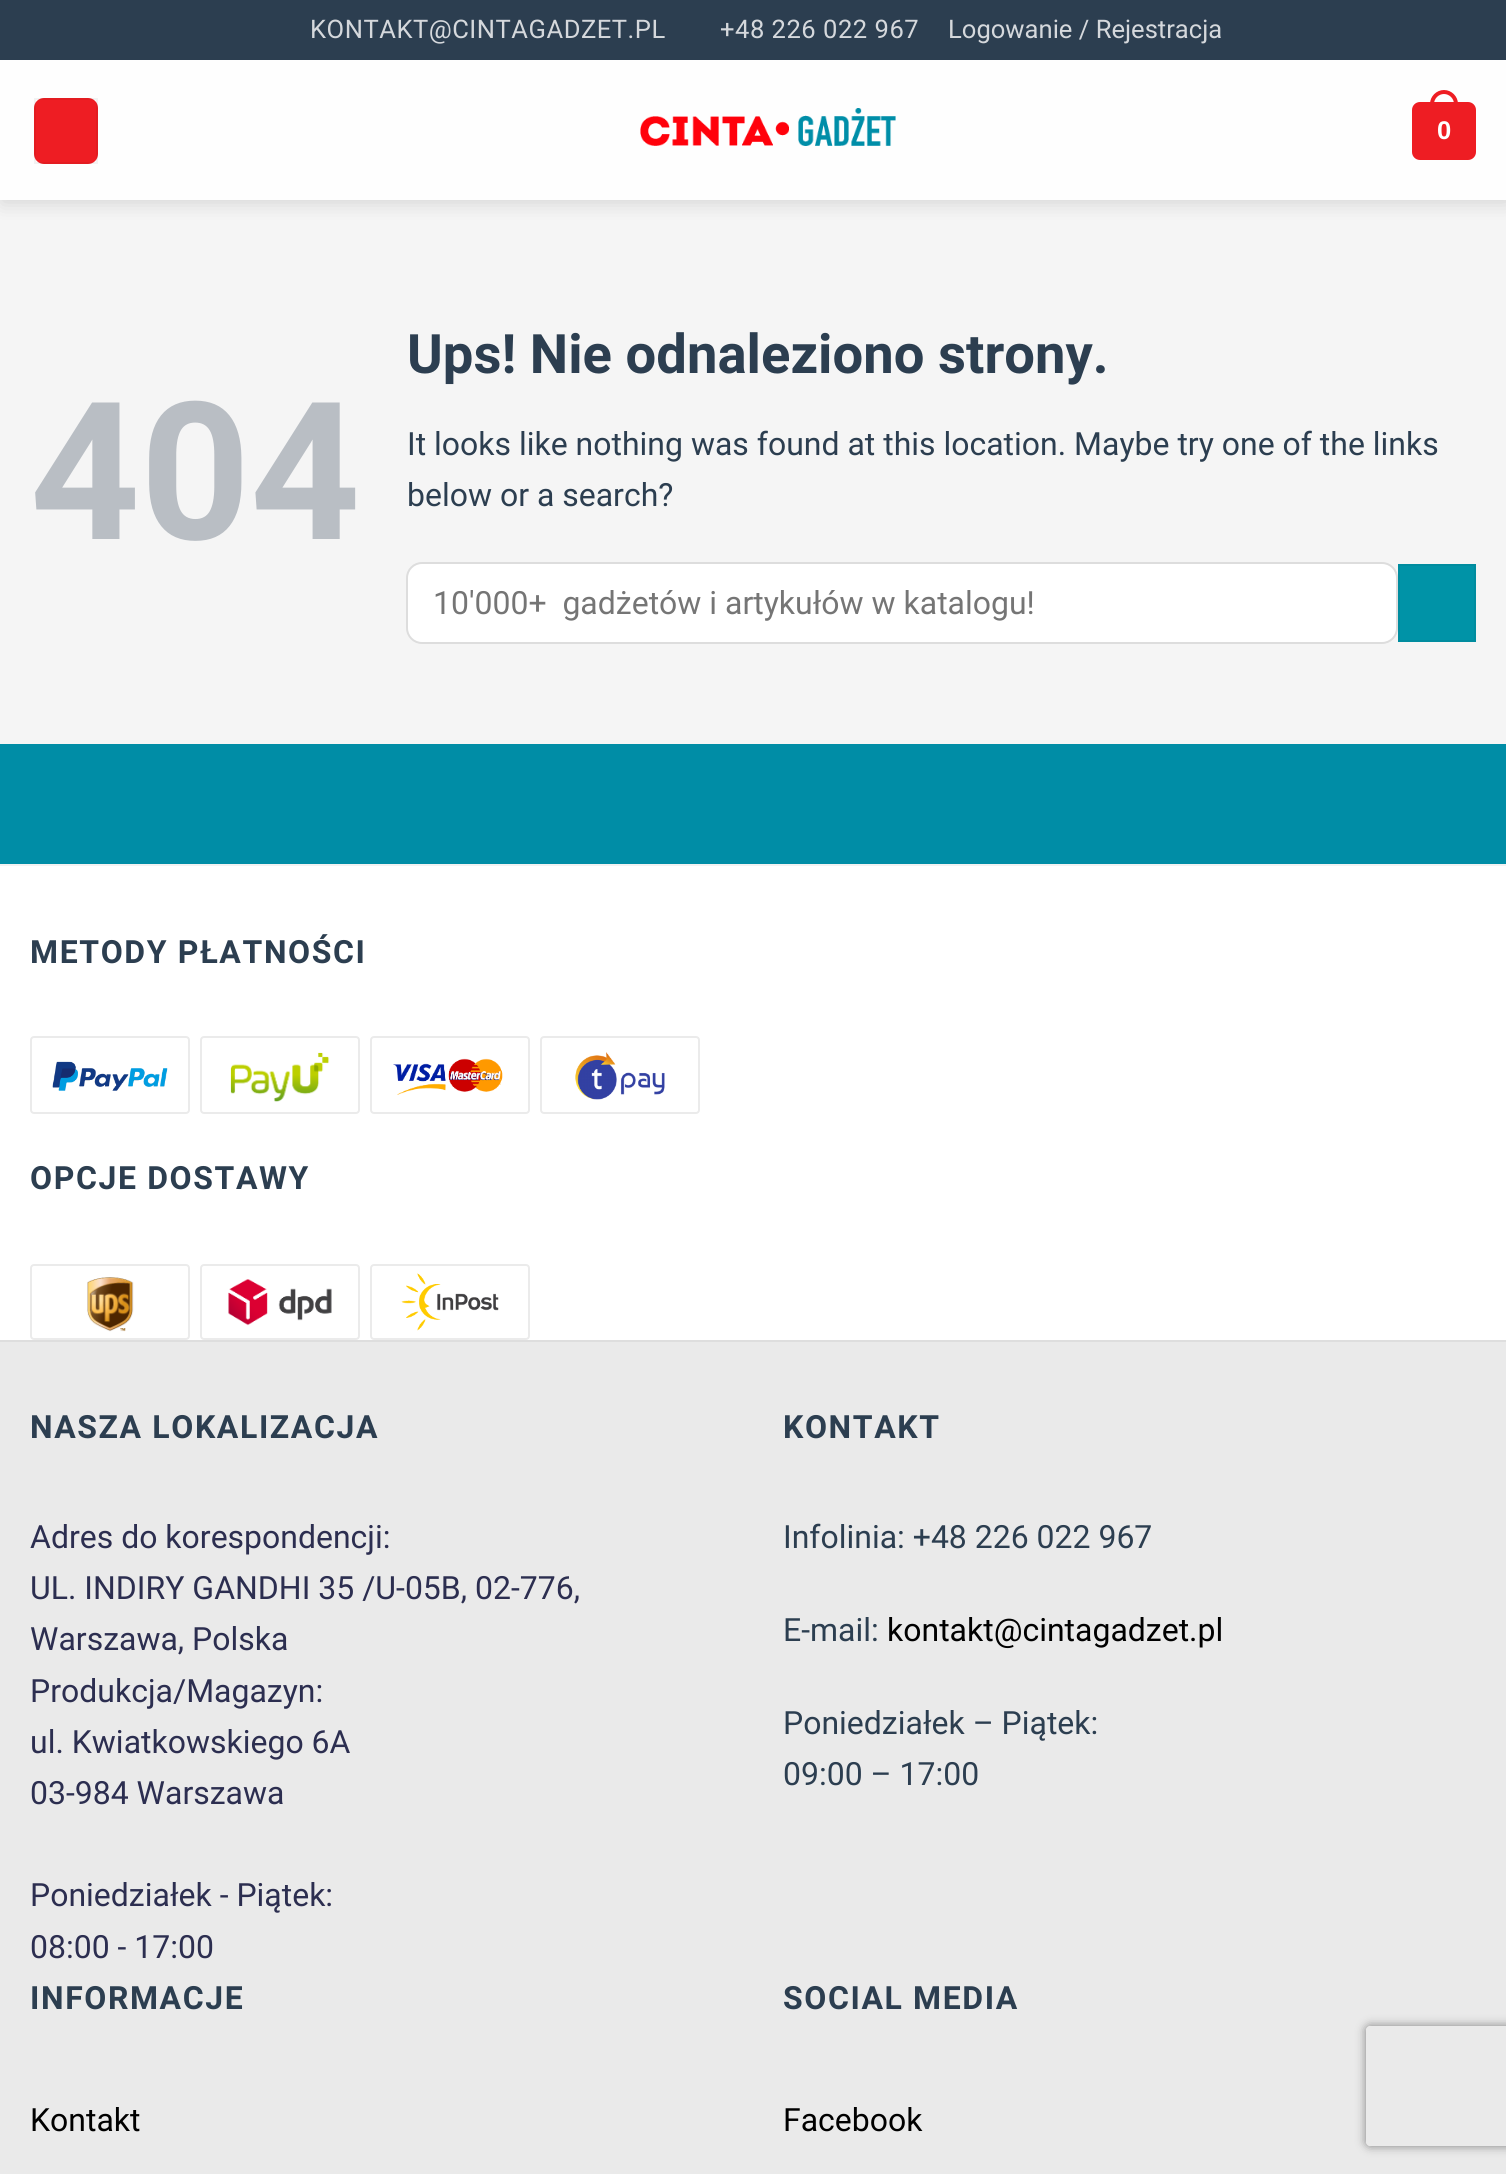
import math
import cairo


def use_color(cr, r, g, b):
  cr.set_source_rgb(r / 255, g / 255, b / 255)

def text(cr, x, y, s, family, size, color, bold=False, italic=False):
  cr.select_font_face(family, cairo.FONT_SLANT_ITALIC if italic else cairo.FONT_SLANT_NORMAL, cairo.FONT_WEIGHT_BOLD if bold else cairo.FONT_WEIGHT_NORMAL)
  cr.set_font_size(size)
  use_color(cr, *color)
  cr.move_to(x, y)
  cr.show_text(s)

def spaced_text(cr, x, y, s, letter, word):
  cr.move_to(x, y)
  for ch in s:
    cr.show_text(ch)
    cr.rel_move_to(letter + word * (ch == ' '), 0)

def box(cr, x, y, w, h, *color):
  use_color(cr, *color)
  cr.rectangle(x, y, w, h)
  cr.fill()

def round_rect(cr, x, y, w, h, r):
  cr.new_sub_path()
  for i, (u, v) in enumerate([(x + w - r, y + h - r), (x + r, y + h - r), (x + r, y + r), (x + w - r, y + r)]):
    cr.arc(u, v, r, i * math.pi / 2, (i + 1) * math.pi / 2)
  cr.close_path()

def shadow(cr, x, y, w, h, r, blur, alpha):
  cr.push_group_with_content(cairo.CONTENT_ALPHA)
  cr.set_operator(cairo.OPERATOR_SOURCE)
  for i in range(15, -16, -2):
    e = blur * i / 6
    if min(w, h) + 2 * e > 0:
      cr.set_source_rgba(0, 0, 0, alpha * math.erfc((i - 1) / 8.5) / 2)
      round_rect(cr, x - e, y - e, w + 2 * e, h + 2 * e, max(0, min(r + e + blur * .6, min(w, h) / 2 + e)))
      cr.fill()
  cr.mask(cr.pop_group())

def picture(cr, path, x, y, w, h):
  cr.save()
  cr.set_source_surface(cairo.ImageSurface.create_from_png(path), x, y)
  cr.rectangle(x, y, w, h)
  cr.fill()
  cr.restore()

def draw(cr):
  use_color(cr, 245, 245, 245)
  cr.paint()
  use_color(cr, 0, 0, 0)
  shadow(cr, 2, 2, 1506, 200, 0, 10, 0.15)
  box(cr, 0, 0, 1506, 60, 44, 62, 80)
  box(cr, 0, 60, 1506, 140, 254, 254, 254)
  use_color(cr, 238, 29, 35)
  round_rect(cr, 34, 98, 64, 66, 10)
  cr.fill()
  cr.rectangle(35, 99, 62, 64)
  cr.set_source_rgba(0, 0, 0, 0.05)
  cr.stroke()
  picture(cr, "img_01.png", 640, 108, 256, 38)
  use_color(cr, 238, 29, 35)
  round_rect(cr, 1414, 104, 60, 54, 6)
  cr.fill_preserve()
  cr.set_line_width(4)
  cr.stroke()
  cr.new_path()
  cr.move_to(1444, 92)
  cr.curve_to(1450.5, 92, 1456, 97.5, 1456, 104)
  cr.line_to(1432, 104)
  cr.curve_to(1432, 97.5, 1437.5, 92, 1444, 92)
  cr.close_path()
  cr.stroke()
  use_color(cr, 255, 255, 255)
  round_rect(cr, 407, 563, 990, 80, 15)
  cr.fill_preserve()
  use_color(cr, 221, 221, 221)
  cr.set_line_width(2)
  cr.stroke()
  use_color(cr, 0, 147, 167)
  cr.rectangle(1399, 565, 76, 76)
  cr.fill_preserve()
  use_color(cr, 0, 140, 159)
  cr.stroke()
  box(cr, 0, 744, 1506, 120, 0, 141, 166)
  box(cr, 0, 866, 1506, 474, 255, 255, 255)
  box(cr, 0, 864, 1506, 2, 242, 242, 242)
  round_rect(cr, 31, 1037, 158, 76, 3)
  use_color(cr, 235, 235, 235)
  cr.stroke()
  picture(cr, "img_02.png", 52, 1061, 116, 30)
  round_rect(cr, 201, 1037, 158, 76, 3)
  cr.stroke()
  picture(cr, "img_03.png", 230, 1052, 100, 50)
  round_rect(cr, 371, 1037, 158, 76, 3)
  cr.stroke()
  picture(cr, "img_04.png", 393, 1058, 110, 37)
  round_rect(cr, 541, 1037, 158, 76, 3)
  cr.stroke()
  picture(cr, "img_05.png", 575, 1052, 90, 48)
  round_rect(cr, 31, 1265, 158, 74, 3)
  cr.stroke()
  picture(cr, "img_06.png", 87, 1277, 47, 55)
  round_rect(cr, 201, 1265, 158, 74, 3)
  cr.stroke()
  picture(cr, "img_07.png", 228, 1279, 104, 47)
  round_rect(cr, 371, 1265, 158, 74, 3)
  cr.stroke()
  picture(cr, "img_08.png", 401, 1273, 98, 58)
  box(cr, 0, 1342, 1506, 832, 234, 234, 234)
  box(cr, 0, 1340, 1506, 2, 222, 222, 222)
  cr.save()
  cr.set_fill_rule(cairo.FILL_RULE_EVEN_ODD)
  cr.new_path()
  cr.move_to(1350, 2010)
  cr.line_to(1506, 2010)
  cr.line_to(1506, 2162)
  cr.line_to(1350, 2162)
  cr.close_path()
  cr.move_to(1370, 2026)
  cr.line_to(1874, 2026)
  cr.curve_to(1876, 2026, 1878, 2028, 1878, 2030)
  cr.line_to(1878, 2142)
  cr.curve_to(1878, 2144, 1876, 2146, 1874, 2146)
  cr.line_to(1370, 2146)
  cr.curve_to(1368, 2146, 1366, 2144, 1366, 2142)
  cr.line_to(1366, 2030)
  cr.curve_to(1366, 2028, 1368, 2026, 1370, 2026)
  cr.close_path()
  cr.clip()
  use_color(cr, 128, 128, 128)
  shadow(cr, 1366, 2026, 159, 120, 4, 5, 1)
  cr.restore()
  cr.select_font_face("Roboto")
  cr.set_font_size(25.6)
  use_color(cr, 213, 216, 220)
  spaced_text(cr, 310, 38, "KONTAKT@CINTAGADZET.PL", 0.5, 0)
  spaced_text(cr, 720, 38, "+48 226 022 967", 0.5, 0)
  text(cr, 948, 38, "Logowanie / Rejestracja", "Roboto", 25.6, (213, 216, 220))
  text(cr, 1437, 139, "0", "Liberation Sans", 25.6, (255, 255, 255), bold=True)
  text(cr, 30, 539, "404", "Roboto", 192, (185, 190, 196), bold=True)
  text(cr, 407, 373, "Ups! Nie odnaleziono strony.", "Roboto", 54.4, (44, 62, 80), bold=True)
  text(cr, 407, 455, "It looks like nothing was found at this location. Maybe try one of the links", "Roboto", 32, (44, 62, 80))
  text(cr, 407, 506, "below or a search?", "Roboto", 32, (44, 62, 80))
  text(cr, 433, 614, "10'000+  gadżetów i artykułów w katalogu!", "Roboto", 32, (117, 117, 117))
  cr.select_font_face("Roboto", cairo.FONT_SLANT_NORMAL, cairo.FONT_WEIGHT_BOLD)
  use_color(cr, 44, 62, 80)
  spaced_text(cr, 30, 963, "METODY PŁATNOŚCI", 1.6, 0)
  spaced_text(cr, 30, 1189, "OPCJE DOSTAWY", 1.6, 0)
  spaced_text(cr, 30, 1438, "NASZA LOKALIZACJA", 1.6, 0)
  text(cr, 30, 1548, "Adres do korespondencji:", "Roboto", 32, (44, 46, 80))
  text(cr, 30, 1599, "UL. INDIRY GANDHI 35 /U-05B, 02-776,", "Roboto", 32, (44, 46, 80))
  text(cr, 30, 1650, "Warszawa, Polska", "Roboto", 32, (44, 46, 80))
  text(cr, 30, 1702, "Produkcja/Magazyn:", "Roboto", 32, (44, 46, 80))
  text(cr, 30, 1753, "ul. Kwiatkowskiego 6A", "Roboto", 32, (44, 46, 80))
  text(cr, 30, 1804, "03-984 Warszawa", "Roboto", 32, (44, 46, 80))
  text(cr, 30, 1906, "Poniedziałek - Piątek:", "Roboto", 32, (44, 46, 80))
  text(cr, 30, 1958, "08:00 - 17:00", "Roboto", 32, (44, 46, 80))
  cr.select_font_face("Roboto", cairo.FONT_SLANT_NORMAL, cairo.FONT_WEIGHT_BOLD)
  use_color(cr, 44, 62, 80)
  spaced_text(cr, 783, 1438, "KONTAKT", 1.6, 0)
  text(cr, 783, 1548, "Infolinia: +48 226 022 967", "Roboto", 32, (44, 62, 80))
  text(cr, 783, 1641, "E-mail:", "Roboto", 32, (44, 62, 80))
  text(cr, 887, 1641, "kontakt@cintagadzet.pl", "Roboto", 32, (0, 0, 0))
  text(cr, 783, 1734, "Poniedziałek – Piątek:", "Roboto", 32, (44, 62, 80))
  text(cr, 783, 1785, "09:00 – 17:00", "Roboto", 32, (44, 62, 80))
  cr.select_font_face("Roboto", cairo.FONT_SLANT_NORMAL, cairo.FONT_WEIGHT_BOLD)
  spaced_text(cr, 30, 2009, "INFORMACJE", 1.6, 0)
  text(cr, 30, 2131, "Kontakt", "Roboto", 32, (0, 0, 0))
  cr.select_font_face("Roboto", cairo.FONT_SLANT_NORMAL, cairo.FONT_WEIGHT_BOLD)
  use_color(cr, 44, 62, 80)
  spaced_text(cr, 783, 2009, "SOCIAL MEDIA", 1.6, 0)
  text(cr, 783, 2131, "Facebook", "Roboto", 32, (0, 0, 0))


surface = cairo.ImageSurface(cairo.FORMAT_RGB24, 1506, 2174)
cr = cairo.Context(surface)
options = cairo.FontOptions()
options.set_hint_metrics(cairo.HINT_METRICS_OFF)
options.set_hint_style(cairo.HINT_STYLE_NONE)
cr.set_font_options(options)
cr.set_miter_limit(4)
draw(cr)
surface.write_to_png("out.png")
